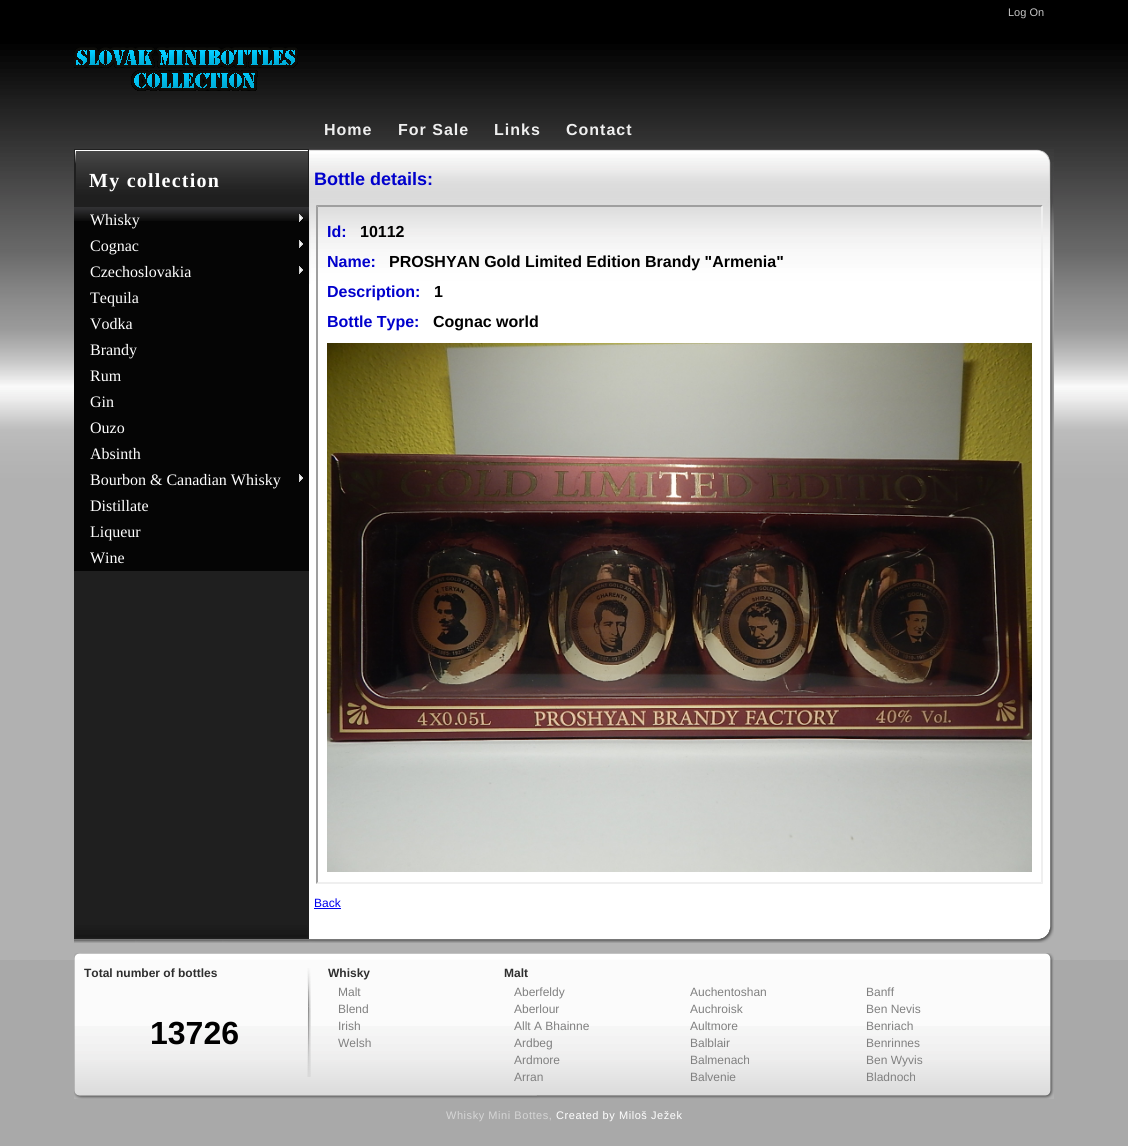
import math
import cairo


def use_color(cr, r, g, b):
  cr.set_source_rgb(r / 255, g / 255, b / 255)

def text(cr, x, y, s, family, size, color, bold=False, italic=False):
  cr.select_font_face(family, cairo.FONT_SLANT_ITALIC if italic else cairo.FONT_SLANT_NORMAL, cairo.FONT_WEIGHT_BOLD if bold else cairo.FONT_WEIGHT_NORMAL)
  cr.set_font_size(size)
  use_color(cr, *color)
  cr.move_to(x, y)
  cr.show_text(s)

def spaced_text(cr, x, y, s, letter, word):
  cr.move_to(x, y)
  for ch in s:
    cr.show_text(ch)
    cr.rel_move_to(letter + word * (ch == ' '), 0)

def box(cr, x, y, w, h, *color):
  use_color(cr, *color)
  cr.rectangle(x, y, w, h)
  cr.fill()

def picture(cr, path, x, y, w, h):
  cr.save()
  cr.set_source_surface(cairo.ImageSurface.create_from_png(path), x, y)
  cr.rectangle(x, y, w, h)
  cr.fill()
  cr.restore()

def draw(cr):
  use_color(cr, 169, 169, 169)
  cr.paint()
  picture(cr, "img_01.png", 0, 0, 1128, 960)
  picture(cr, "img_02.png", 74, 47, 224, 44)
  picture(cr, "img_03.png", 74, 149, 980, 774)
  picture(cr, "img_04.png", 75, 149, 979, 135)
  box(cr, 74, 221, 235, 350, 5, 5, 5)
  picture(cr, "img_05.png", 74, 207, 235, 14)
  picture(cr, "img_06.png", 299, 214, 5, 8)
  picture(cr, "img_07.png", 299, 240, 4, 8)
  picture(cr, "img_07.png", 299, 266, 4, 8)
  picture(cr, "img_07.png", 299, 474, 4, 8)
  use_color(cr, 159, 159, 159)
  cr.new_path()
  cr.move_to(316, 205)
  cr.line_to(1043, 205)
  cr.line_to(1041, 207)
  cr.line_to(318, 207)
  cr.close_path()
  cr.fill()
  use_color(cr, 239, 239, 239)
  cr.new_path()
  cr.move_to(1043, 205)
  cr.line_to(1043, 884)
  cr.line_to(1041, 882)
  cr.line_to(1041, 207)
  cr.close_path()
  cr.fill()
  cr.new_path()
  cr.move_to(1043, 884)
  cr.line_to(316, 884)
  cr.line_to(318, 882)
  cr.line_to(1041, 882)
  cr.close_path()
  cr.fill()
  use_color(cr, 159, 159, 159)
  cr.new_path()
  cr.move_to(316, 884)
  cr.line_to(316, 205)
  cr.line_to(318, 207)
  cr.line_to(318, 882)
  cr.close_path()
  cr.fill()
  picture(cr, "img_08.png", 327, 343, 705, 529)
  box(cr, 314, 908, 27, 1, 0, 0, 238)
  picture(cr, "img_09.png", 74, 923, 980, 20)
  picture(cr, "img_10.png", 74, 960, 980, 66)
  picture(cr, "img_11.png", 74, 953, 980, 7)
  picture(cr, "img_12.png", 74, 1026, 980, 73)
  picture(cr, "img_13.png", 307, 968, 4, 109)
  text(cr, 1008, 16, "Log On", "Liberation Sans", 11, (198, 198, 198))
  cr.select_font_face("Liberation Sans", cairo.FONT_SLANT_NORMAL, cairo.FONT_WEIGHT_BOLD)
  cr.set_font_size(16)
  use_color(cr, 239, 239, 239)
  spaced_text(cr, 324, 135, "Home", 1, 0)
  spaced_text(cr, 398, 135, "For Sale", 1, 0)
  spaced_text(cr, 494, 135, "Links", 1, 0)
  spaced_text(cr, 566, 135, "Contact", 1, 0)
  cr.select_font_face("Liberation Serif", cairo.FONT_SLANT_NORMAL, cairo.FONT_WEIGHT_BOLD)
  cr.set_font_size(20)
  use_color(cr, 255, 255, 255)
  spaced_text(cr, 89, 187, "My collection", 1.25, 0)
  text(cr, 90, 225, "Whisky", "Liberation Serif", 16, (255, 255, 255))
  text(cr, 90, 251, "Cognac", "Liberation Serif", 16, (255, 255, 255))
  text(cr, 90, 277, "Czechoslovakia", "Liberation Serif", 16, (255, 255, 255))
  text(cr, 90, 303, "Tequila", "Liberation Serif", 16, (255, 255, 255))
  text(cr, 90, 329, "Vodka", "Liberation Serif", 16, (255, 255, 255))
  text(cr, 90, 355, "Brandy", "Liberation Serif", 16, (255, 255, 255))
  text(cr, 90, 381, "Rum", "Liberation Serif", 16, (255, 255, 255))
  text(cr, 90, 407, "Gin", "Liberation Serif", 16, (255, 255, 255))
  text(cr, 90, 433, "Ouzo", "Liberation Serif", 16, (255, 255, 255))
  text(cr, 90, 459, "Absinth", "Liberation Serif", 16, (255, 255, 255))
  text(cr, 90, 485, "Bourbon & Canadian Whisky", "Liberation Serif", 16, (255, 255, 255))
  text(cr, 90, 511, "Distillate", "Liberation Serif", 16, (255, 255, 255))
  text(cr, 90, 537, "Liqueur", "Liberation Serif", 16, (255, 255, 255))
  text(cr, 90, 563, "Wine", "Liberation Serif", 16, (255, 255, 255))
  text(cr, 314, 185, "Bottle details:", "Liberation Sans", 18, (0, 0, 204), bold=True)
  text(cr, 327, 237, "Id:", "Liberation Sans", 16, (0, 0, 204), bold=True)
  text(cr, 360, 237, "10112", "Liberation Sans", 16, (0, 0, 0), bold=True)
  text(cr, 327, 267, "Name:", "Liberation Sans", 16, (0, 0, 204), bold=True)
  text(cr, 389, 267, "PROSHYAN Gold Limited Edition Brandy \"Armenia\"", "Liberation Sans", 16, (0, 0, 0), bold=True)
  text(cr, 327, 297, "Description:", "Liberation Sans", 16, (0, 0, 204), bold=True)
  text(cr, 434, 297, "1", "Liberation Sans", 16, (0, 0, 0), bold=True)
  text(cr, 327, 327, "Bottle Type:", "Liberation Sans", 16, (0, 0, 204), bold=True)
  text(cr, 433, 327, "Cognac world", "Liberation Sans", 16, (0, 0, 0), bold=True)
  text(cr, 314, 907, "Back", "Liberation Sans", 12, (0, 0, 238))
  text(cr, 84, 977, "Total number of bottles", "Liberation Sans", 12, (47, 47, 47), bold=True)
  text(cr, 150, 1044, "13726", "Liberation Sans", 32, (0, 0, 0), bold=True)
  text(cr, 328, 977, "Whisky", "Liberation Sans", 12, (47, 47, 47), bold=True)
  text(cr, 338, 996, "Malt", "Liberation Sans", 12, (128, 128, 128))
  text(cr, 338, 1013, "Blend", "Liberation Sans", 12, (128, 128, 128))
  text(cr, 338, 1030, "Irish", "Liberation Sans", 12, (128, 128, 128))
  text(cr, 338, 1047, "Welsh", "Liberation Sans", 12, (128, 128, 128))
  text(cr, 504, 977, "Malt", "Liberation Sans", 12, (47, 47, 47), bold=True)
  text(cr, 514, 996, "Aberfeldy", "Liberation Sans", 12, (128, 128, 128))
  text(cr, 514, 1013, "Aberlour", "Liberation Sans", 12, (128, 128, 128))
  text(cr, 514, 1030, "Allt A Bhainne", "Liberation Sans", 12, (128, 128, 128))
  text(cr, 514, 1047, "Ardbeg", "Liberation Sans", 12, (128, 128, 128))
  text(cr, 514, 1064, "Ardmore", "Liberation Sans", 12, (128, 128, 128))
  text(cr, 514, 1081, "Arran", "Liberation Sans", 12, (128, 128, 128))
  text(cr, 690, 996, "Auchentoshan", "Liberation Sans", 12, (128, 128, 128))
  text(cr, 690, 1013, "Auchroisk", "Liberation Sans", 12, (128, 128, 128))
  text(cr, 690, 1030, "Aultmore", "Liberation Sans", 12, (128, 128, 128))
  text(cr, 690, 1047, "Balblair", "Liberation Sans", 12, (128, 128, 128))
  text(cr, 690, 1064, "Balmenach", "Liberation Sans", 12, (128, 128, 128))
  text(cr, 690, 1081, "Balvenie", "Liberation Sans", 12, (128, 128, 128))
  text(cr, 866, 996, "Banff", "Liberation Sans", 12, (128, 128, 128))
  text(cr, 866, 1013, "Ben Nevis", "Liberation Sans", 12, (128, 128, 128))
  text(cr, 866, 1030, "Benriach", "Liberation Sans", 12, (128, 128, 128))
  text(cr, 866, 1047, "Benrinnes", "Liberation Sans", 12, (128, 128, 128))
  text(cr, 866, 1064, "Ben Wyvis", "Liberation Sans", 12, (128, 128, 128))
  text(cr, 866, 1081, "Bladnoch", "Liberation Sans", 12, (128, 128, 128))
  cr.set_font_size(11)
  use_color(cr, 213, 213, 213)
  spaced_text(cr, 446, 1119, "Whisky Mini Bottes,", 0.55, 0)
  use_color(cr, 255, 255, 255)
  spaced_text(cr, 556, 1119, "Created by Miloš Ježek", 0.55, 0)


surface = cairo.ImageSurface(cairo.FORMAT_RGB24, 1128, 1146)
cr = cairo.Context(surface)
options = cairo.FontOptions()
options.set_hint_metrics(cairo.HINT_METRICS_OFF)
options.set_hint_style(cairo.HINT_STYLE_NONE)
cr.set_font_options(options)
cr.set_miter_limit(4)
draw(cr)
surface.write_to_png("out.png")
